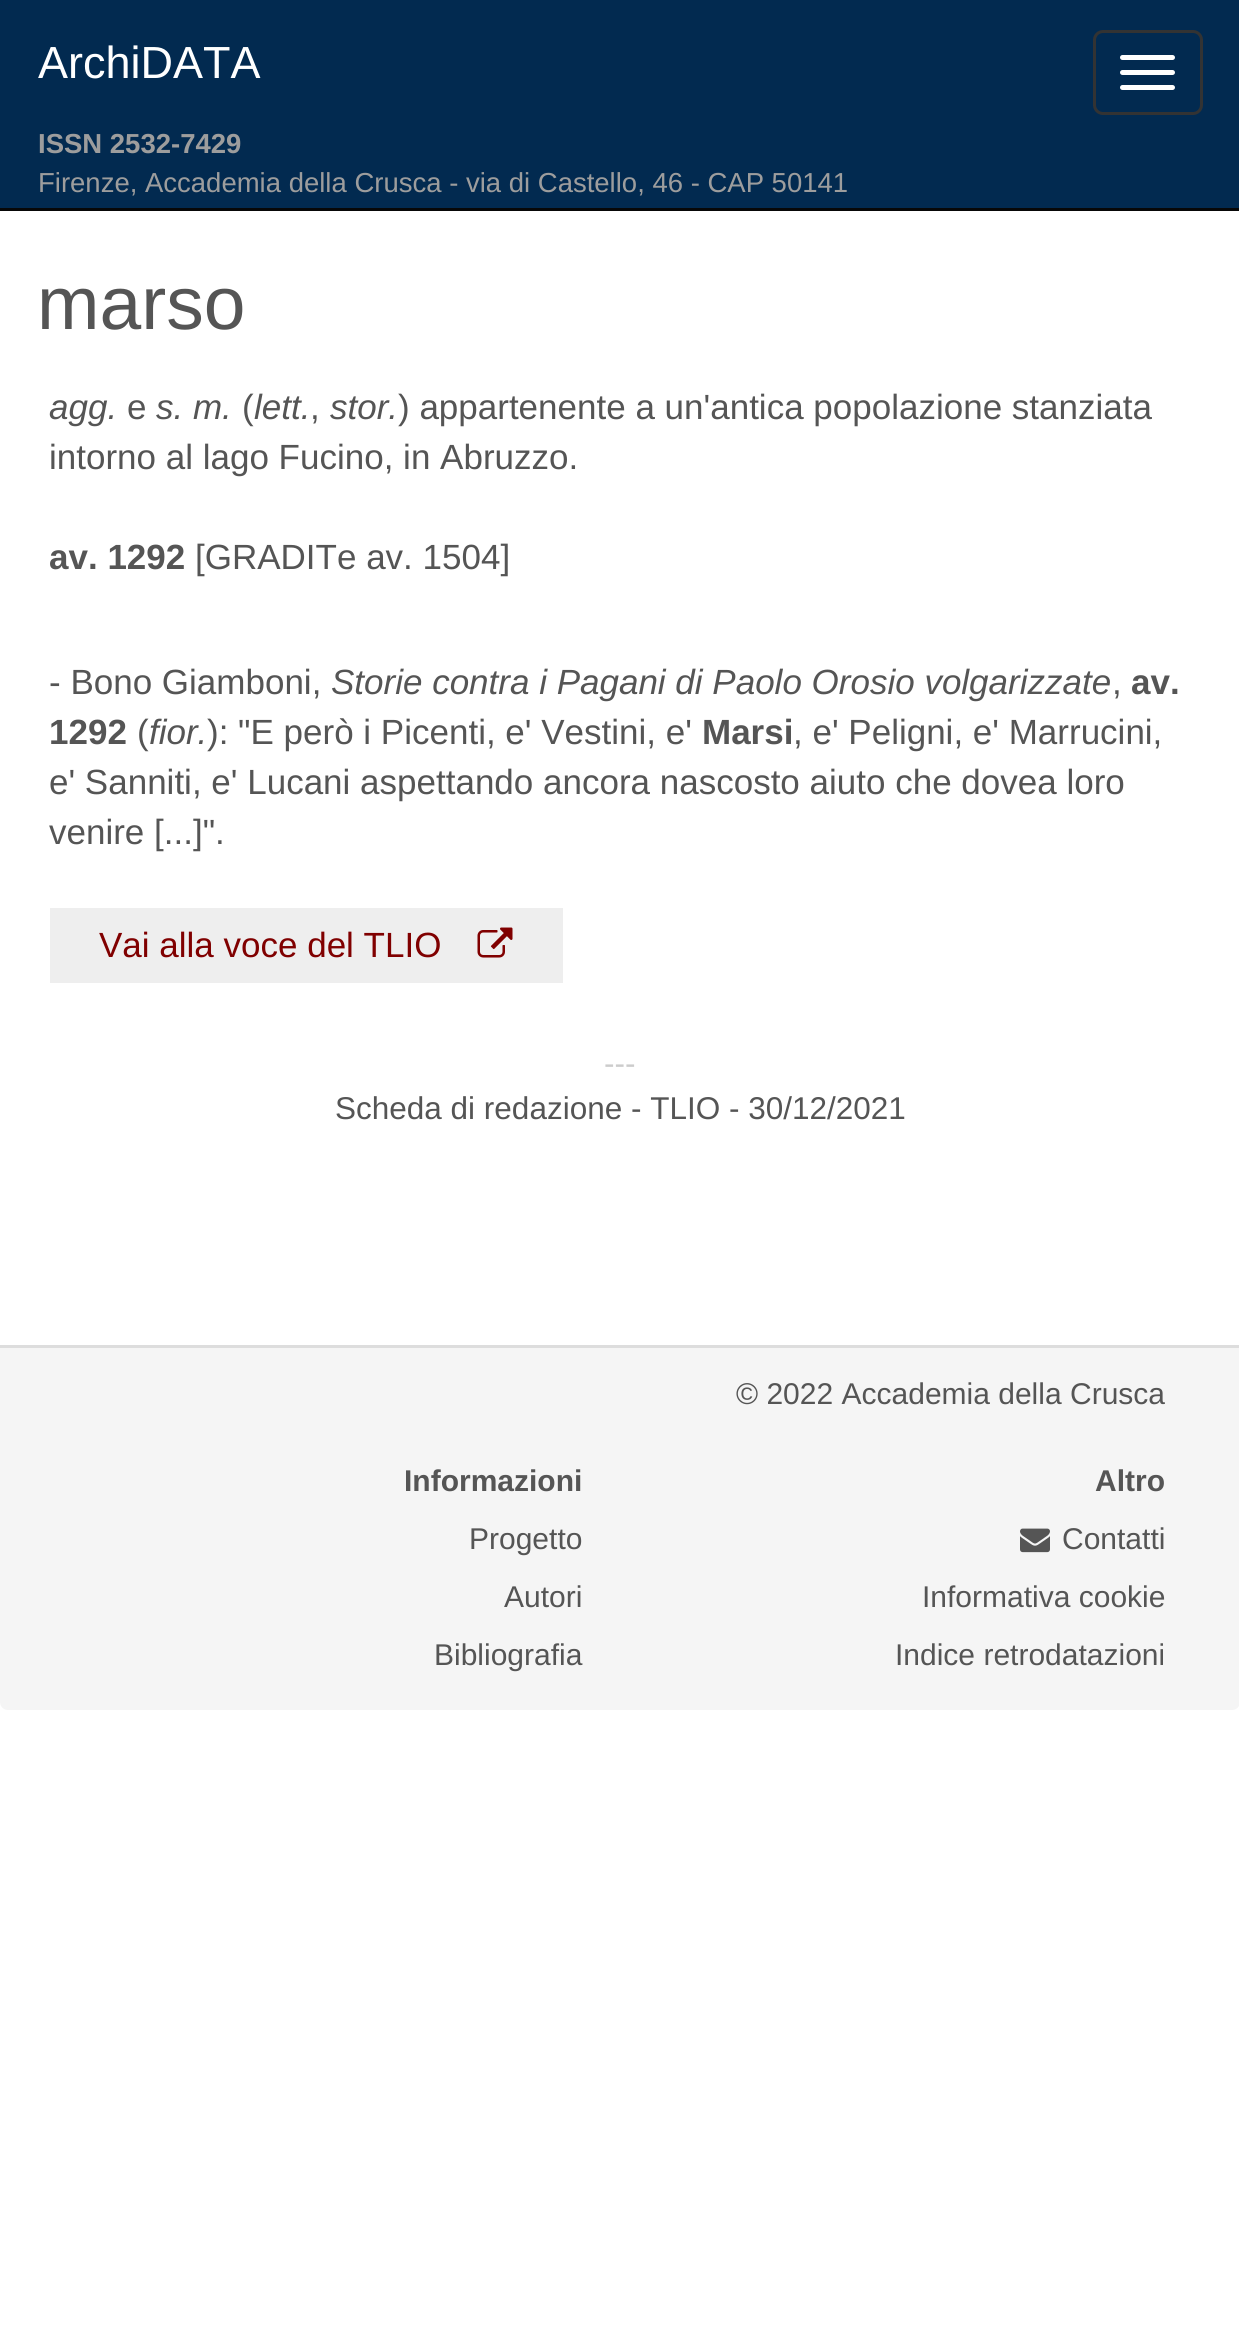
import math
import cairo


def use_color(cr, r, g, b):
  cr.set_source_rgb(r / 255, g / 255, b / 255)

def text(cr, x, y, s, family, size, color, bold=False, italic=False):
  cr.select_font_face(family, cairo.FONT_SLANT_ITALIC if italic else cairo.FONT_SLANT_NORMAL, cairo.FONT_WEIGHT_BOLD if bold else cairo.FONT_WEIGHT_NORMAL)
  cr.set_font_size(size)
  use_color(cr, *color)
  cr.move_to(x, y)
  cr.show_text(s)

def box(cr, x, y, w, h, *color):
  use_color(cr, *color)
  cr.rectangle(x, y, w, h)
  cr.fill()

def round_rect(cr, x, y, w, h, r):
  cr.new_sub_path()
  for i, (u, v) in enumerate([(x + w - r, y + h - r), (x + r, y + h - r), (x + r, y + r), (x + w - r, y + r)]):
    cr.arc(u, v, r, i * math.pi / 2, (i + 1) * math.pi / 2)
  cr.close_path()

def picture(cr, path, x, y, w, h):
  cr.save()
  cr.set_source_surface(cairo.ImageSurface.create_from_png(path), x, y)
  cr.rectangle(x, y, w, h)
  cr.fill()
  cr.restore()

def draw(cr):
  use_color(cr, 255, 255, 255)
  cr.paint()
  box(cr, 0, 0, 1239, 208, 2, 42, 80)
  box(cr, 0, 208, 1239, 3, 8, 8, 8)
  round_rect(cr, 1094.5, 31.5, 107, 82, 8.5)
  use_color(cr, 51, 51, 51)
  cr.set_line_width(3)
  cr.stroke()
  use_color(cr, 255, 255, 255)
  round_rect(cr, 1120, 55, 55, 5, 2.5)
  cr.fill()
  round_rect(cr, 1120, 70, 55, 5, 2.5)
  cr.fill()
  round_rect(cr, 1120, 85, 55, 5, 2.5)
  cr.fill()
  box(cr, 50, 908, 513, 75, 238, 238, 238)
  picture(cr, "img_01.png", 477, 927, 36, 31)
  use_color(cr, 245, 245, 245)
  cr.new_path()
  cr.move_to(0, 1345)
  cr.line_to(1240, 1345)
  cr.line_to(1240, 1702)
  cr.curve_to(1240, 1706.5, 1236.5, 1710, 1232, 1710)
  cr.line_to(8, 1710)
  cr.curve_to(3.5, 1710, 0, 1706.5, 0, 1702)
  cr.close_path()
  cr.fill()
  box(cr, 0, 1345, 1239, 3, 221, 221, 221)
  picture(cr, "img_02.png", 1020, 1528, 30, 25)
  text(cr, 38, 78, "ArchiDATA", "Liberation Sans", 45, (255, 255, 255))
  text(cr, 38, 153, "ISSN 2532-7429", "Liberation Sans", 27.5, (157, 157, 157), bold=True)
  text(cr, 38, 192, "Firenze, Accademia della Crusca - via di Castello, 46 - CAP 50141", "Liberation Sans", 27.5, (157, 157, 157))
  text(cr, 37, 329, "marso", "Liberation Sans", 75, (85, 85, 85))
  text(cr, 49, 419, "agg.", "Liberation Sans", 35, (85, 85, 85), italic=True)
  text(cr, 127, 419, "e", "Liberation Sans", 35, (85, 85, 85))
  text(cr, 156, 419, "s. m.", "Liberation Sans", 35, (85, 85, 85), italic=True)
  text(cr, 242, 419, "(", "Liberation Sans", 35, (85, 85, 85))
  text(cr, 254, 419, "lett.", "Liberation Sans", 35, (85, 85, 85), italic=True)
  text(cr, 310, 419, ",", "Liberation Sans", 35, (85, 85, 85))
  text(cr, 330, 419, "stor.", "Liberation Sans", 35, (85, 85, 85), italic=True)
  text(cr, 398, 419, ") appartenente a un'antica popolazione stanziata", "Liberation Sans", 35, (85, 85, 85))
  text(cr, 49, 469, "intorno al lago Fucino, in Abruzzo.", "Liberation Sans", 35, (85, 85, 85))
  text(cr, 49, 569, "av. 1292", "Liberation Sans", 35, (85, 85, 85), bold=True)
  text(cr, 195, 569, "[GRADITe av. 1504]", "Liberation Sans", 35, (85, 85, 85))
  text(cr, 49, 694, "- Bono Giamboni,", "Liberation Sans", 35, (85, 85, 85))
  text(cr, 331, 694, "Storie contra i Pagani di Paolo Orosio volgarizzate", "Liberation Sans", 35, (85, 85, 85), italic=True)
  text(cr, 1112, 694, ",", "Liberation Sans", 35, (85, 85, 85))
  text(cr, 1131, 694, "av.", "Liberation Sans", 35, (85, 85, 85), bold=True)
  text(cr, 49, 744, "1292", "Liberation Sans", 35, (85, 85, 85), bold=True)
  text(cr, 137, 744, "(", "Liberation Sans", 35, (85, 85, 85))
  text(cr, 149, 744, "fior.", "Liberation Sans", 35, (85, 85, 85), italic=True)
  text(cr, 207, 744, "): \"E però i Picenti, e' Vestini, e'", "Liberation Sans", 35, (85, 85, 85))
  text(cr, 702, 744, "Marsi", "Liberation Sans", 35, (85, 85, 85), bold=True)
  text(cr, 793, 744, ", e' Peligni, e' Marrucini,", "Liberation Sans", 35, (85, 85, 85))
  text(cr, 49, 794, "e' Sanniti, e' Lucani aspettando ancora nascosto aiuto che dovea loro", "Liberation Sans", 35, (85, 85, 85))
  text(cr, 49, 844, "venire [...]\".", "Liberation Sans", 35, (85, 85, 85))
  text(cr, 99, 957, "Vai alla voce del TLIO", "Liberation Sans", 35, (128, 0, 0))
  text(cr, 604, 1074, "---", "Liberation Sans", 31.5, (204, 204, 204))
  text(cr, 335, 1119, "Scheda di redazione - TLIO - 30/12/2021", "Liberation Sans", 31.5, (85, 85, 85))
  text(cr, 736, 1404, "© 2022 Accademia della Crusca", "Liberation Sans", 30, (85, 85, 85))
  text(cr, 404, 1491, "Informazioni", "Liberation Sans", 30, (85, 85, 85), bold=True)
  text(cr, 469, 1549, "Progetto", "Liberation Sans", 30, (85, 85, 85))
  text(cr, 504, 1607, "Autori", "Liberation Sans", 30, (85, 85, 85))
  text(cr, 434, 1665, "Bibliografia", "Liberation Sans", 30, (85, 85, 85))
  text(cr, 1095, 1491, "Altro", "Liberation Sans", 30, (85, 85, 85), bold=True)
  text(cr, 1062, 1549, "Contatti", "Liberation Sans", 30, (85, 85, 85))
  text(cr, 922, 1607, "Informativa cookie", "Liberation Sans", 30, (85, 85, 85))
  text(cr, 895, 1665, "Indice retrodatazioni", "Liberation Sans", 30, (85, 85, 85))


surface = cairo.ImageSurface(cairo.FORMAT_RGB24, 1239, 2330)
cr = cairo.Context(surface)
options = cairo.FontOptions()
options.set_hint_metrics(cairo.HINT_METRICS_OFF)
options.set_hint_style(cairo.HINT_STYLE_NONE)
cr.set_font_options(options)
cr.set_miter_limit(4)
draw(cr)
surface.write_to_png("out.png")
